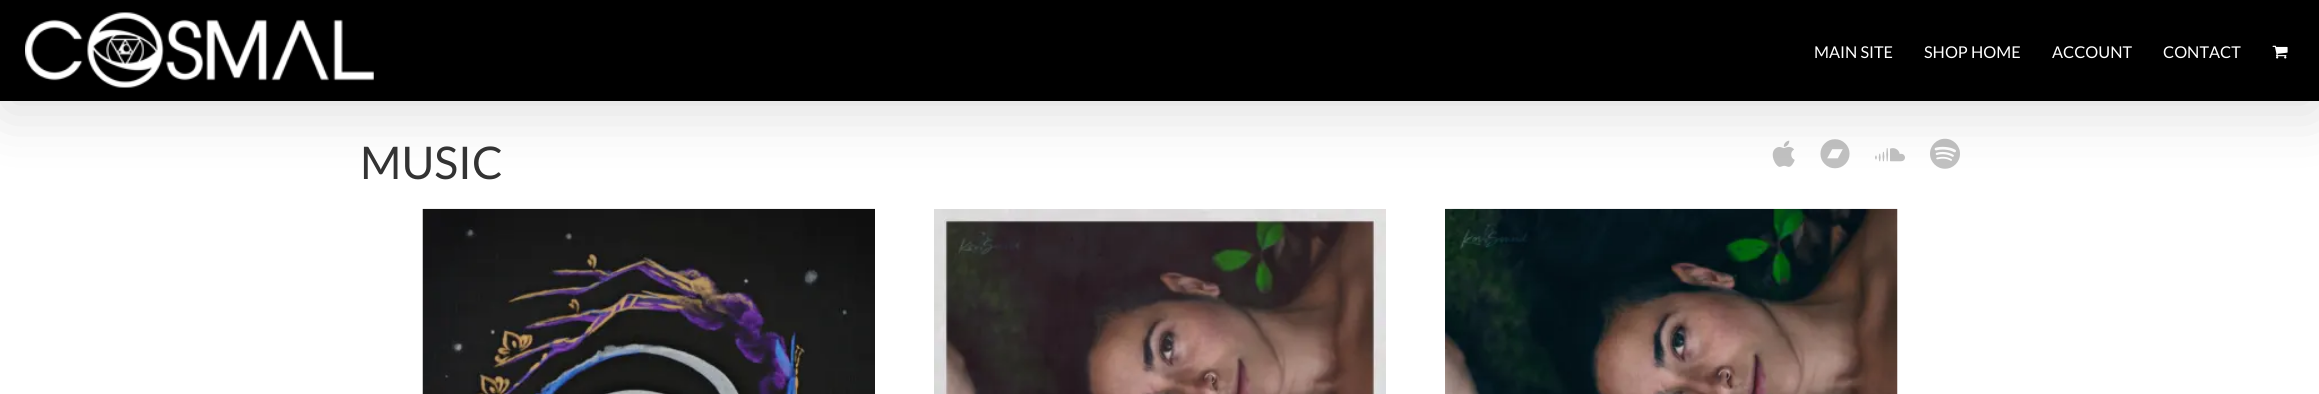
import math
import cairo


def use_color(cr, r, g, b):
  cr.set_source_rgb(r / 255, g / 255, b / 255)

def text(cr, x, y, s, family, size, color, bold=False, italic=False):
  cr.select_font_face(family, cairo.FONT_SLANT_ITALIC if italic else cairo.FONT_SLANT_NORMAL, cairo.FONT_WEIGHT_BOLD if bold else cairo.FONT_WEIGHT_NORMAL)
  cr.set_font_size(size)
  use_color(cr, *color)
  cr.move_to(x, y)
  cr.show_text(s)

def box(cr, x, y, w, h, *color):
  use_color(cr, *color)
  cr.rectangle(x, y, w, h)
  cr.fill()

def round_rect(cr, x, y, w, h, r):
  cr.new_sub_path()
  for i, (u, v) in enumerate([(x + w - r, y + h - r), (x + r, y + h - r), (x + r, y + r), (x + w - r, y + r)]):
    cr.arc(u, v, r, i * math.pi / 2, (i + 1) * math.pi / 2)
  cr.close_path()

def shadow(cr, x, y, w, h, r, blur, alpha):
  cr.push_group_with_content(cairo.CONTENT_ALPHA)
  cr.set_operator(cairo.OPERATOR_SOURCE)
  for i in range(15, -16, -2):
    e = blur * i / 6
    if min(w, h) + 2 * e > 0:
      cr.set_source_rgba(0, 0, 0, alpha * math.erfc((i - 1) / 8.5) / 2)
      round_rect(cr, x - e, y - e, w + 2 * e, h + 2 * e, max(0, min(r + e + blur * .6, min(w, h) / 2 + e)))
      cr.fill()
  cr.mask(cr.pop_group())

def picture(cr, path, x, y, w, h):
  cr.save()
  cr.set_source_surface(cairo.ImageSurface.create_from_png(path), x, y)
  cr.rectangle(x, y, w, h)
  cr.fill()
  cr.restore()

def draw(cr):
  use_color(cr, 255, 255, 255)
  cr.paint()
  picture(cr, "img_03.png", 1772, 140, 23, 27)
  picture(cr, "img_04.png", 1820, 139, 30, 30)
  picture(cr, "img_05.png", 1875, 148, 30, 14)
  picture(cr, "img_06.png", 1930, 138, 30, 31)
  use_color(cr, 0, 0, 0)
  shadow(cr, 3, 15, 2315, 96, 0, 31, 0.14)
  box(cr, 0, 0, 2319, 101, 0, 0, 0)
  picture(cr, "img_01.png", 25, 12, 349, 76)
  picture(cr, "img_02.png", 2272, 45, 16, 14)
  picture(cr, "img_07.png", 422, 208, 453, 186)
  picture(cr, "img_08.png", 934, 209, 452, 185)
  picture(cr, "img_09.png", 1445, 208, 453, 186)
  text(cr, 1814, 58, "MAIN SITE", "Lato", 16.25, (255, 255, 255))
  text(cr, 1924, 58, "SHOP HOME", "Lato", 16.25, (255, 255, 255))
  text(cr, 2052, 58, "ACCOUNT", "Lato", 16.25, (255, 255, 255))
  text(cr, 2163, 58, "CONTACT", "Lato", 16.25, (255, 255, 255))
  text(cr, 360, 179, "MUSIC", "Lato", 45, (51, 51, 51))


surface = cairo.ImageSurface(cairo.FORMAT_RGB24, 2319, 394)
cr = cairo.Context(surface)
options = cairo.FontOptions()
options.set_hint_metrics(cairo.HINT_METRICS_OFF)
options.set_hint_style(cairo.HINT_STYLE_NONE)
cr.set_font_options(options)
cr.set_miter_limit(4)
draw(cr)
surface.write_to_png("out.png")
